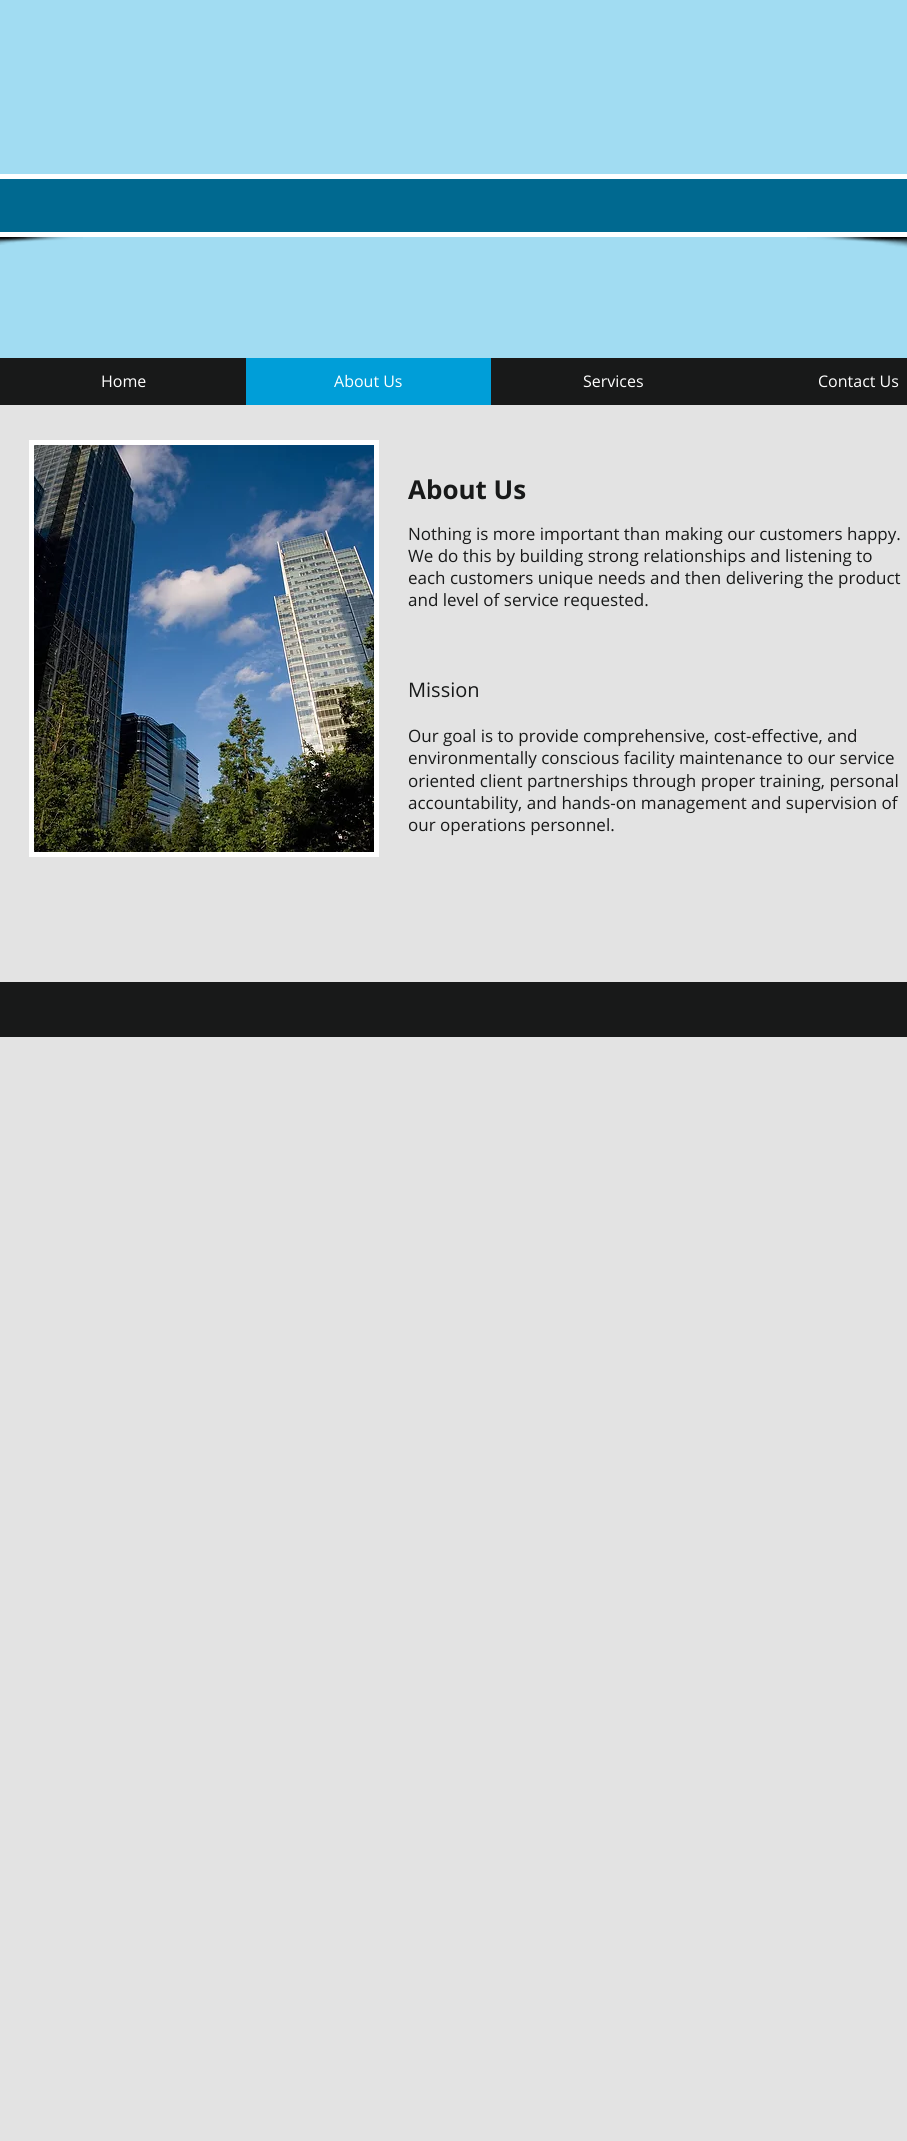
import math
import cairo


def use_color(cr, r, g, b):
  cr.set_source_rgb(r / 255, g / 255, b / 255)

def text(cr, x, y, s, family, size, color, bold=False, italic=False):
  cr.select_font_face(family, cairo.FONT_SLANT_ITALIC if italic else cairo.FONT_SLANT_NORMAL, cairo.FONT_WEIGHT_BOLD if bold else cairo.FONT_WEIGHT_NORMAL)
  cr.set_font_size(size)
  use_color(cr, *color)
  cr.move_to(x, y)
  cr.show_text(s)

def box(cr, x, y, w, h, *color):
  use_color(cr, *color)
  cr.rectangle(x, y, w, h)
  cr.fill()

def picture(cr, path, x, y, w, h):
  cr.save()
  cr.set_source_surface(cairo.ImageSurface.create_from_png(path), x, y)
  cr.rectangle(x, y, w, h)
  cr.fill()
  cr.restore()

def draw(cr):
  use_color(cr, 227, 227, 227)
  cr.paint()
  box(cr, 0, 0, 907, 358, 161, 220, 242)
  use_color(cr, 0, 105, 144)
  cr.rectangle(-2.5, 176.5, 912, 58)
  cr.fill_preserve()
  use_color(cr, 255, 255, 255)
  cr.set_line_width(5)
  cr.stroke()
  picture(cr, "img_01.png", 0, 237, 83, 8)
  picture(cr, "img_02.png", 807, 237, 100, 11)
  box(cr, 0, 358, 907, 47, 24, 25, 25)
  box(cr, 246, 358, 245, 47, 0, 158, 216)
  box(cr, 29, 440, 350, 417, 255, 255, 255)
  picture(cr, "img_03.png", 34, 445, 340, 407)
  box(cr, 0, 982, 907, 55, 24, 25, 25)
  text(cr, 101, 387, "Home", "Open Sans", 16, (255, 255, 255))
  text(cr, 334, 387, "About Us", "Open Sans", 16, (255, 255, 255))
  text(cr, 583, 387, "Services", "Open Sans", 16, (255, 255, 255))
  text(cr, 818, 387, "Contact Us", "Open Sans", 16, (255, 255, 255))
  text(cr, 408, 499, "About Us", "Open Sans", 26, (24, 25, 25), bold=True)
  text(cr, 408, 540, "Nothing is more important than making our customers happy.", "Open Sans", 17, (24, 25, 25))
  text(cr, 408, 562, "We do this by building strong relationships and listening to", "Open Sans", 17, (24, 25, 25))
  text(cr, 408, 584, "each customers unique needs and then delivering the product", "Open Sans", 17, (24, 25, 25))
  text(cr, 408, 606, "and level of service requested.", "Open Sans", 17, (24, 25, 25))
  text(cr, 408, 697, "Mission", "Open Sans", 20, (24, 25, 25))
  text(cr, 408, 742, "Our goal is to provide comprehensive, cost-effective, and", "Open Sans", 17, (24, 25, 25))
  text(cr, 408, 764, "environmentally conscious facility maintenance to our service", "Open Sans", 17, (24, 25, 25))
  text(cr, 408, 787, "oriented client partnerships through proper training, personal", "Open Sans", 17, (24, 25, 25))
  text(cr, 408, 809, "accountability, and hands-on management and supervision of", "Open Sans", 17, (24, 25, 25))
  text(cr, 408, 831, "our operations personnel.", "Open Sans", 17, (24, 25, 25))


surface = cairo.ImageSurface(cairo.FORMAT_RGB24, 907, 2141)
cr = cairo.Context(surface)
options = cairo.FontOptions()
options.set_hint_metrics(cairo.HINT_METRICS_OFF)
options.set_hint_style(cairo.HINT_STYLE_NONE)
cr.set_font_options(options)
cr.set_miter_limit(4)
draw(cr)
surface.write_to_png("out.png")
